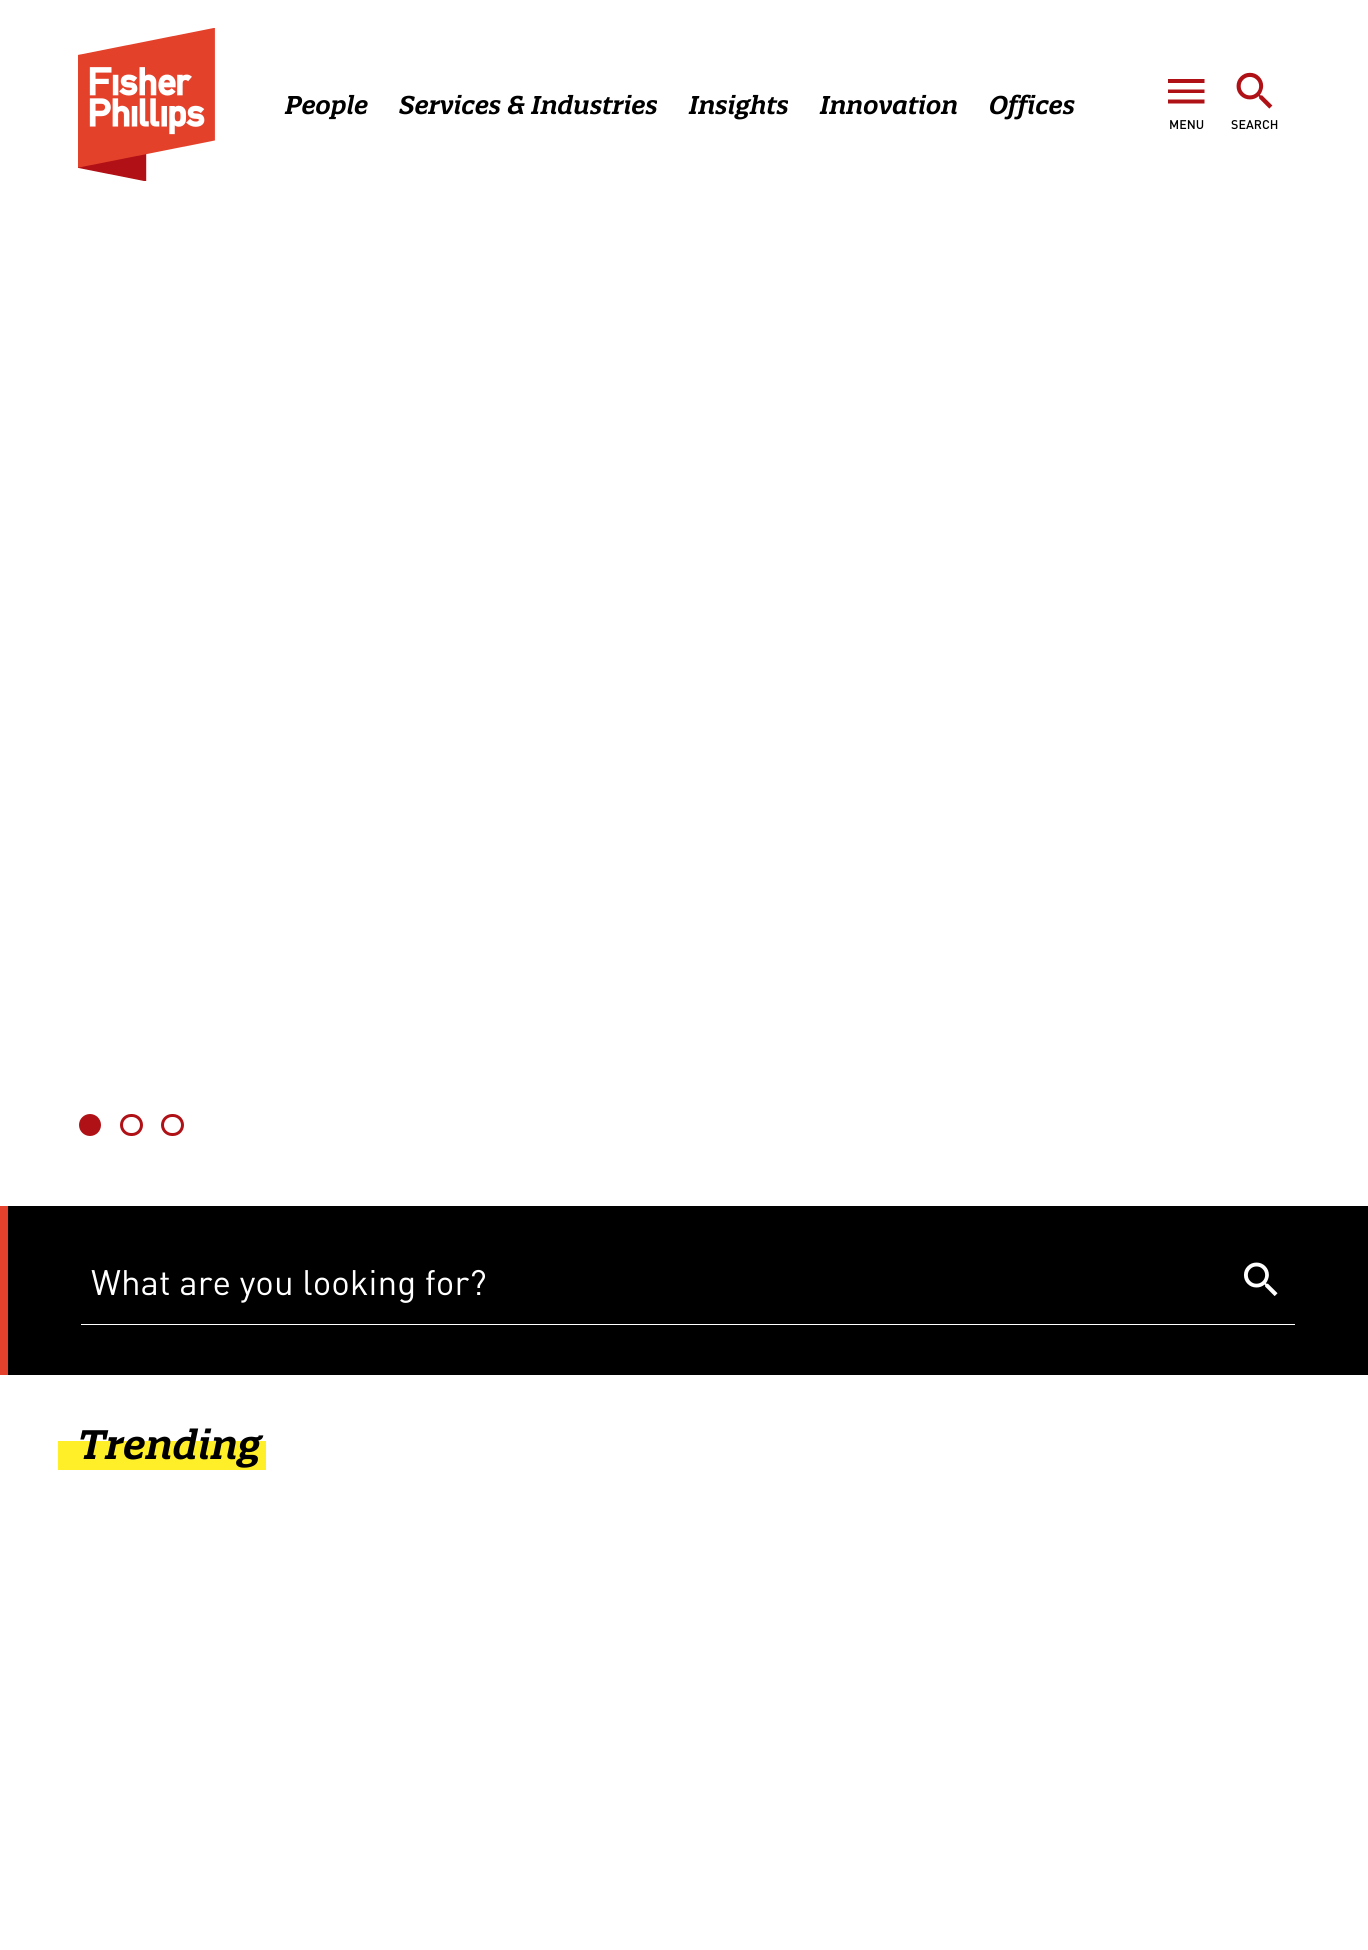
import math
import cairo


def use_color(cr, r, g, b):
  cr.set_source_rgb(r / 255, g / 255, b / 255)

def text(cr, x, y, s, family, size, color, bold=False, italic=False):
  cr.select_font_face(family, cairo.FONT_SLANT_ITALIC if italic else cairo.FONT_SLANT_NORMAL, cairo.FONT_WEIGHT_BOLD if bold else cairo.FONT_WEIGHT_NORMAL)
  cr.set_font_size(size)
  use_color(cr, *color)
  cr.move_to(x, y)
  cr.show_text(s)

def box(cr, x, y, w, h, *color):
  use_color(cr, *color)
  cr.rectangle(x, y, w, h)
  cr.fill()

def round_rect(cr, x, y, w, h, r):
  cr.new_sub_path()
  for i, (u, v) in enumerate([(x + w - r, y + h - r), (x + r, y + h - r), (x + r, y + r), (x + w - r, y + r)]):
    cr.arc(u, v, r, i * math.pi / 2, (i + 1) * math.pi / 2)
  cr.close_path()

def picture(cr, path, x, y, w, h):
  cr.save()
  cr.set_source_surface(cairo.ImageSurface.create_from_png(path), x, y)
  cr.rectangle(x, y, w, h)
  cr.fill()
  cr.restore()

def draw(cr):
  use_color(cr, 255, 255, 255)
  cr.paint()
  picture(cr, "img_01.png", 78, 28, 137, 153)
  use_color(cr, 176, 17, 22)
  cr.new_path()
  cr.move_to(1168, 79)
  cr.line_to(1204.5, 79)
  cr.line_to(1204.5, 83)
  cr.line_to(1168, 83)
  cr.close_path()
  cr.move_to(1168, 93)
  cr.line_to(1168, 89.5)
  cr.line_to(1204.5, 89.5)
  cr.line_to(1204.5, 93)
  cr.close_path()
  cr.move_to(1168, 103.5)
  cr.line_to(1168, 99.5)
  cr.line_to(1204.5, 99.5)
  cr.line_to(1204.5, 103.5)
  cr.close_path()
  cr.fill()
  picture(cr, "img_02.png", 1236, 72, 37, 37)
  cr.arc(90, 1125, 9.5, 0, 2 * math.pi)
  cr.fill_preserve()
  cr.set_line_width(3)
  cr.stroke()
  round_rect(cr, 121.5, 1115.5, 20, 19, 9.5)
  cr.stroke()
  round_rect(cr, 162.5, 1115.5, 20, 19, 9.5)
  cr.stroke()
  box(cr, 8, 1206, 1360, 169, 0, 0, 0)
  box(cr, 0, 1206, 8, 169, 227, 65, 43)
  box(cr, 81, 1324, 1214, 1, 255, 255, 255)
  picture(cr, "img_03.png", 1244, 1262, 34, 34)
  box(cr, 58, 1441, 208, 29, 255, 239, 41)
  text(cr, 285, 114, "People", "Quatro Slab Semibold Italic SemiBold", 25, (0, 0, 0))
  text(cr, 399, 114, "Services & Industries", "Quatro Slab Semibold Italic SemiBold", 25, (0, 0, 0))
  text(cr, 689, 114, "Insights", "Quatro Slab Semibold Italic SemiBold", 25, (0, 0, 0))
  text(cr, 820, 114, "Innovation", "Quatro Slab Semibold Italic SemiBold", 25, (0, 0, 0))
  text(cr, 989, 114, "Offices", "Quatro Slab Semibold Italic SemiBold", 25, (0, 0, 0))
  text(cr, 1169, 129, "MENU", "DIN Medium", 12.5, (0, 0, 0))
  text(cr, 1231, 129, "SEARCH", "DIN Medium", 12.5, (0, 0, 0))
  text(cr, 91, 1295, "What are you looking for?", "DIN", 35, (255, 255, 255))
  text(cr, 78, 1459, "Trending", "Quatro Slab Semibold Italic SemiBold", 40, (0, 0, 0))


surface = cairo.ImageSurface(cairo.FORMAT_RGB24, 1368, 1950)
cr = cairo.Context(surface)
options = cairo.FontOptions()
options.set_hint_metrics(cairo.HINT_METRICS_OFF)
options.set_hint_style(cairo.HINT_STYLE_NONE)
cr.set_font_options(options)
cr.set_miter_limit(4)
draw(cr)
surface.write_to_png("out.png")
